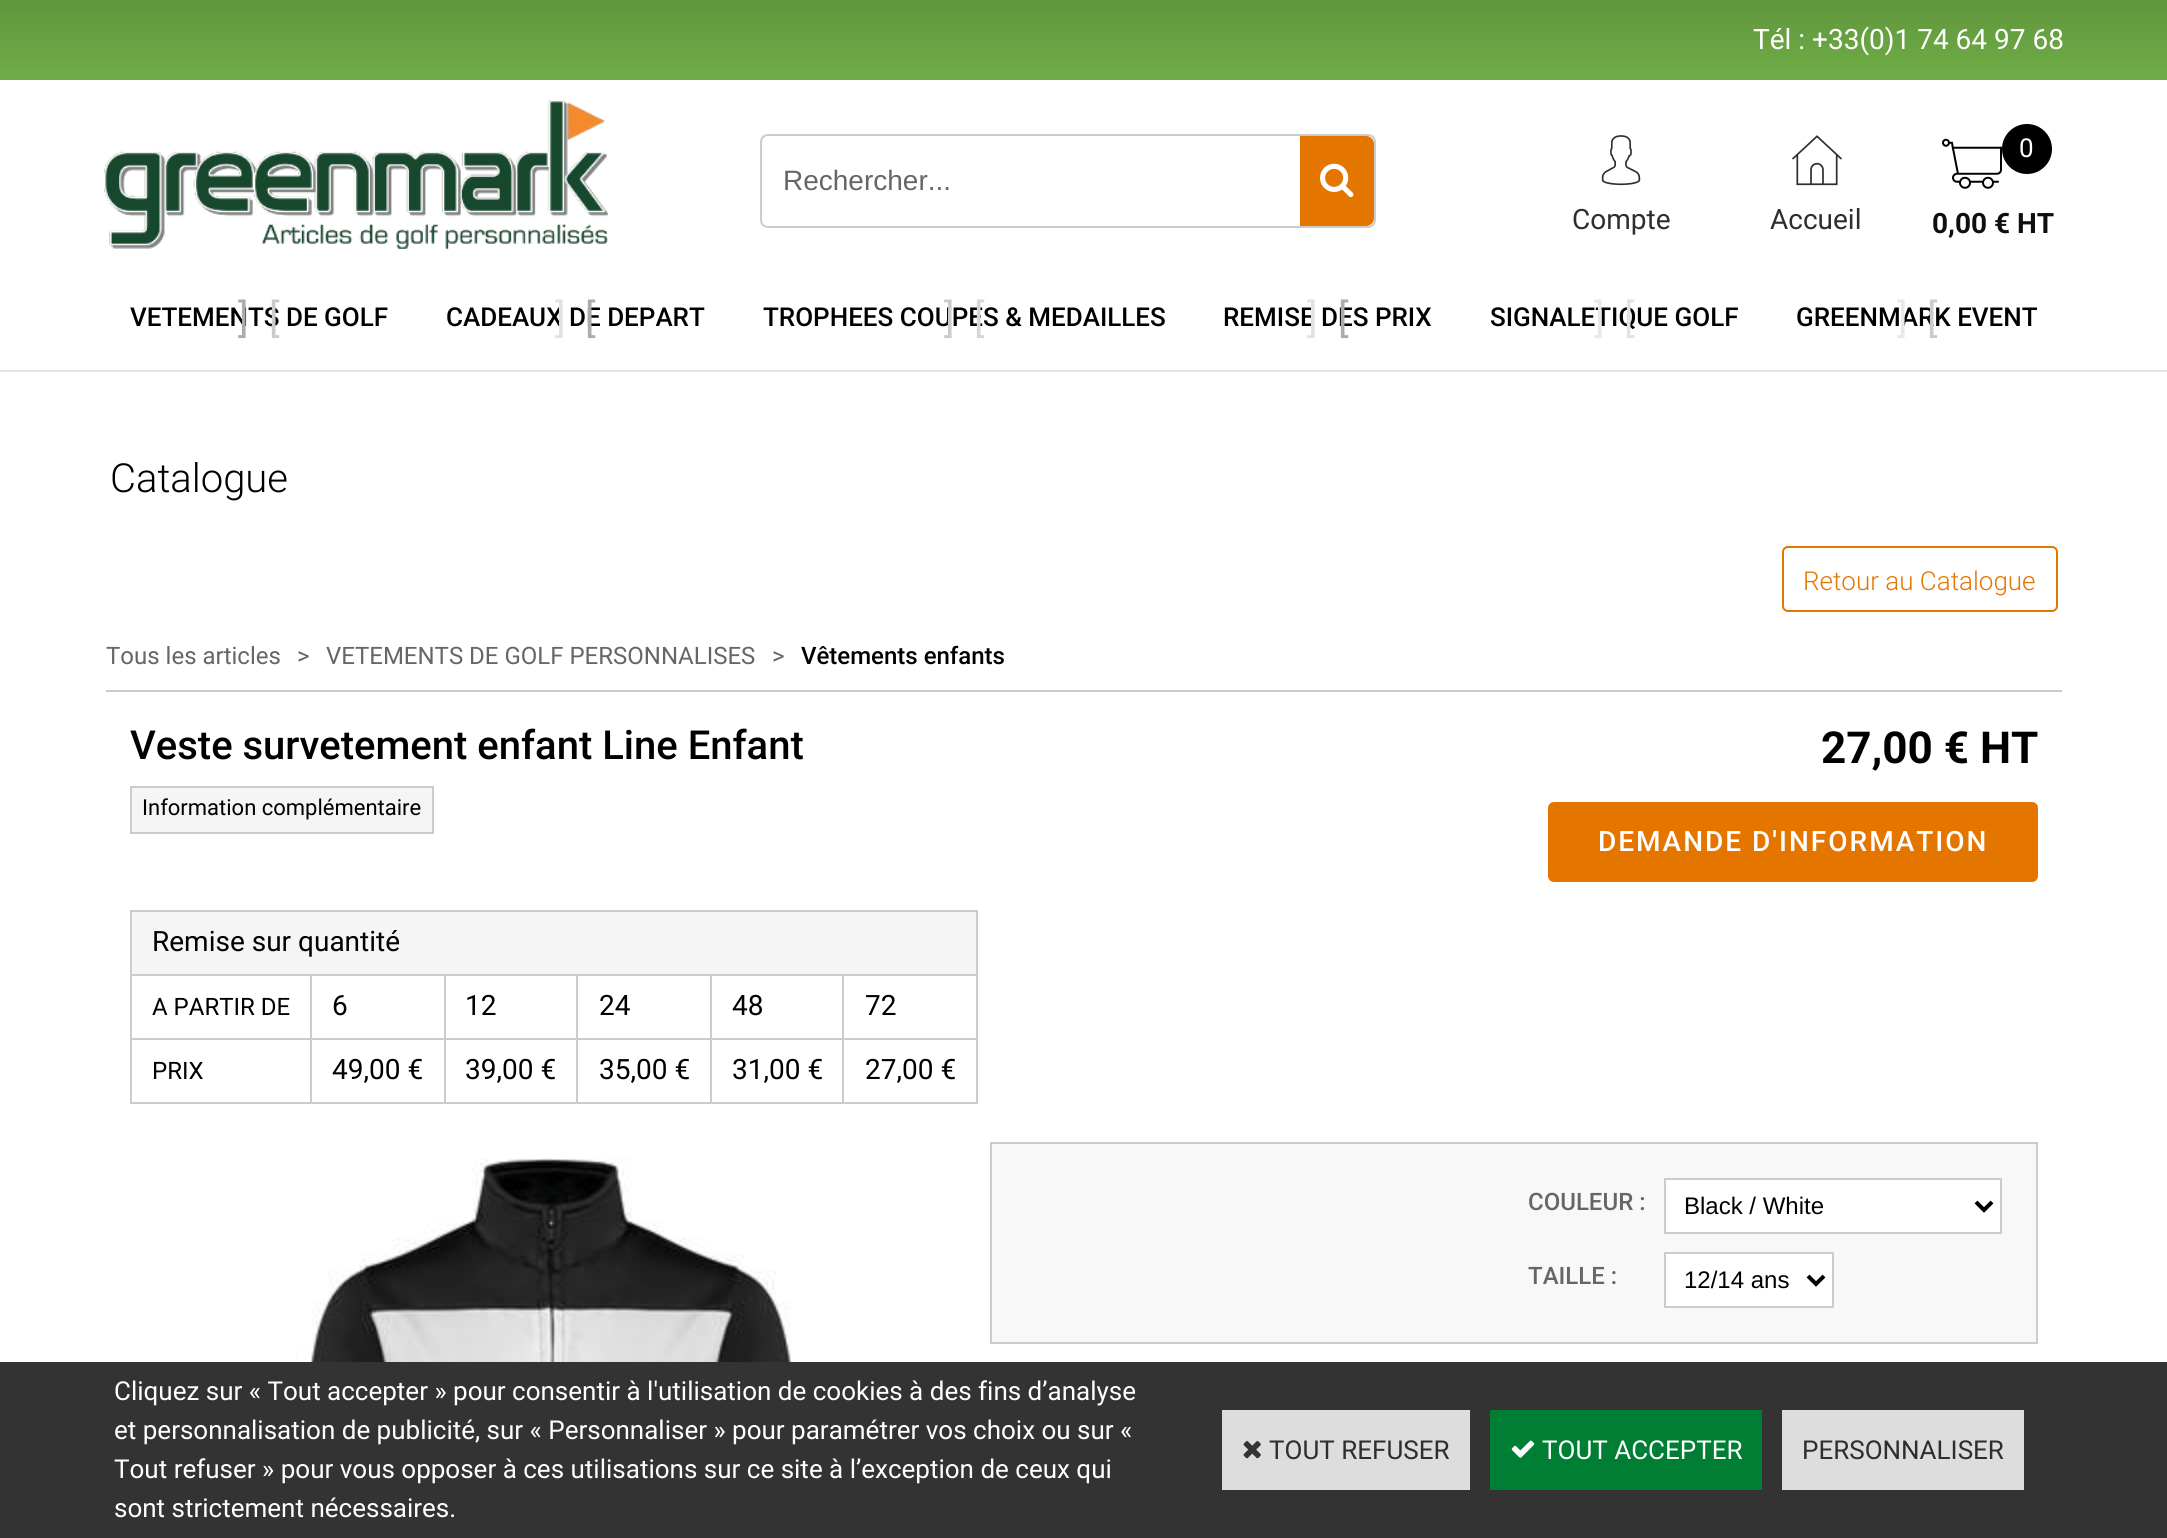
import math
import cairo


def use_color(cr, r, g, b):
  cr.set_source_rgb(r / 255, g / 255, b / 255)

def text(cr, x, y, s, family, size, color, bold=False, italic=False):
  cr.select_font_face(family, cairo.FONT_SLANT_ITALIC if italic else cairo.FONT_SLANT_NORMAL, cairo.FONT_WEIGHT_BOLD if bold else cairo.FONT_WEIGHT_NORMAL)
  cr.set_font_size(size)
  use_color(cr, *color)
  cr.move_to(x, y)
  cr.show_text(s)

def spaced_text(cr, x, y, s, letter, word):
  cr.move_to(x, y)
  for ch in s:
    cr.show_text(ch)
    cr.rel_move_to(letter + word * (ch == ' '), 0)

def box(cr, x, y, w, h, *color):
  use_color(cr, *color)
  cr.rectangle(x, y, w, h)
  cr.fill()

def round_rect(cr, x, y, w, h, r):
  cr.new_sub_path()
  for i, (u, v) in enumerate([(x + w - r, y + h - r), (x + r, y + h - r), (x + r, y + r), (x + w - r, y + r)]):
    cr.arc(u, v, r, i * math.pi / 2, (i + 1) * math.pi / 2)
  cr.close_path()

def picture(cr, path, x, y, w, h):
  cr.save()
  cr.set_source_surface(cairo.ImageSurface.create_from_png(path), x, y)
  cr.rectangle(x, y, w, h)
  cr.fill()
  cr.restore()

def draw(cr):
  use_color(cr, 255, 255, 255)
  cr.paint()
  gradient = cairo.LinearGradient(1084, 0, 1084, 80)
  gradient.add_color_stop_rgba(0, 0.376, 0.588, 0.235, 1)
  gradient.add_color_stop_rgba(1, 0.439, 0.678, 0.278, 1)
  cr.set_source(gradient)
  cr.rectangle(0, 0, 2167, 80)
  cr.fill()
  box(cr, 0, 370, 2167, 2, 226, 226, 226)
  picture(cr, "img_01.png", 104, 100, 504, 149)
  round_rect(cr, 761, 135, 614, 92, 7)
  use_color(cr, 204, 204, 204)
  cr.stroke()
  use_color(cr, 228, 118, 0)
  cr.new_path()
  cr.move_to(1300, 136)
  cr.line_to(1366, 136)
  cr.curve_to(1370.5, 136, 1374, 139.5, 1374, 144)
  cr.line_to(1374, 218)
  cr.curve_to(1374, 222.5, 1370.5, 226, 1366, 226)
  cr.line_to(1300, 226)
  cr.close_path()
  cr.fill()
  picture(cr, "img_02.png", 1320, 163, 34, 35)
  picture(cr, "img_03.png", 1601, 135, 40, 51)
  picture(cr, "img_04.png", 1792, 135, 50, 51)
  picture(cr, "img_05.png", 1942, 138, 60, 51)
  use_color(cr, 0, 0, 0)
  cr.arc(2027, 149, 25, 0, 2 * math.pi)
  cr.fill()
  round_rect(cr, 1783, 547, 274, 64, 5)
  use_color(cr, 228, 118, 0)
  cr.stroke()
  box(cr, 106, 690, 1956, 2, 204, 204, 204)
  use_color(cr, 245, 245, 245)
  cr.rectangle(131, 787, 302, 46)
  cr.fill_preserve()
  use_color(cr, 204, 204, 204)
  cr.stroke()
  use_color(cr, 228, 118, 0)
  round_rect(cr, 1548, 802, 490, 80, 6)
  cr.fill()
  box(cr, 130, 910, 848, 2, 204, 204, 204)
  box(cr, 976, 910, 2, 194, 204, 204, 204)
  box(cr, 130, 1102, 848, 2, 204, 204, 204)
  box(cr, 130, 910, 2, 194, 204, 204, 204)
  box(cr, 132, 912, 844, 62, 245, 245, 245)
  box(cr, 842, 974, 136, 2, 204, 204, 204)
  box(cr, 842, 1038, 136, 2, 204, 204, 204)
  box(cr, 842, 1038, 2, 66, 204, 204, 204)
  box(cr, 710, 1038, 134, 2, 204, 204, 204)
  box(cr, 842, 974, 2, 66, 204, 204, 204)
  box(cr, 710, 974, 134, 2, 204, 204, 204)
  box(cr, 710, 1038, 2, 66, 204, 204, 204)
  box(cr, 576, 1038, 136, 2, 204, 204, 204)
  box(cr, 710, 974, 2, 66, 204, 204, 204)
  box(cr, 576, 974, 136, 2, 204, 204, 204)
  box(cr, 576, 1038, 2, 66, 204, 204, 204)
  box(cr, 444, 1038, 134, 2, 204, 204, 204)
  box(cr, 576, 974, 2, 66, 204, 204, 204)
  box(cr, 444, 974, 134, 2, 204, 204, 204)
  box(cr, 444, 1038, 2, 66, 204, 204, 204)
  box(cr, 310, 1038, 136, 2, 204, 204, 204)
  box(cr, 444, 974, 2, 66, 204, 204, 204)
  box(cr, 310, 974, 136, 2, 204, 204, 204)
  box(cr, 310, 1038, 2, 66, 204, 204, 204)
  box(cr, 130, 1038, 182, 2, 204, 204, 204)
  box(cr, 310, 974, 2, 66, 204, 204, 204)
  box(cr, 130, 974, 182, 2, 204, 204, 204)
  picture(cr, "img_06.png", 282, 1158, 542, 204)
  use_color(cr, 248, 248, 248)
  cr.rectangle(991, 1143, 1046, 200)
  cr.fill_preserve()
  use_color(cr, 204, 204, 204)
  cr.stroke()
  use_color(cr, 255, 255, 255)
  cr.rectangle(1665, 1179, 336, 54)
  cr.fill_preserve()
  use_color(cr, 204, 204, 204)
  cr.stroke()
  cr.new_path()
  cr.move_to(1976, 1202)
  cr.line_to(1984, 1210)
  cr.line_to(1992, 1202)
  use_color(cr, 0, 0, 0)
  cr.set_line_width(4)
  cr.stroke()
  use_color(cr, 255, 255, 255)
  cr.rectangle(1665, 1253, 168, 54)
  cr.fill_preserve()
  use_color(cr, 204, 204, 204)
  cr.set_line_width(2)
  cr.stroke()
  cr.new_path()
  cr.move_to(1808, 1276)
  cr.line_to(1816, 1284)
  cr.line_to(1824, 1276)
  use_color(cr, 0, 0, 0)
  cr.set_line_width(4)
  cr.stroke()
  box(cr, 0, 1362, 2167, 176, 51, 51, 51)
  box(cr, 1222, 1410, 248, 80, 221, 221, 221)
  picture(cr, "img_07.png", 1243, 1441, 18, 18)
  box(cr, 1490, 1410, 272, 80, 0, 126, 51)
  picture(cr, "img_08.png", 1511, 1440, 24, 18)
  box(cr, 1782, 1410, 242, 80, 221, 221, 221)
  text(cr, 1753, 49, "Tél : +33(0)1 74 64 97 68", "Roboto", 28, (255, 255, 255))
  text(cr, 783, 190, "Rechercher...", "Liberation Sans", 28, (102, 102, 102))
  text(cr, 1572, 229, "Compte", "Roboto", 28, (46, 46, 46))
  text(cr, 1770, 229, "Accueil", "Roboto", 28, (46, 46, 46))
  text(cr, 2019, 157, "0", "Roboto", 26, (255, 255, 255))
  text(cr, 1932, 233, "0,00 € HT", "Roboto", 28, (15, 15, 15), bold=True)
  text(cr, 130, 326, "VETEMENTS DE GOLF", "Roboto Medium", 26, (0, 0, 0))
  text(cr, 238, 332, "]", "Roboto", 40, (172, 172, 172))
  text(cr, 269, 332, "[", "Roboto", 40, (203, 203, 203))
  text(cr, 446, 326, "CADEAUX DE DEPART", "Roboto Medium", 26, (0, 0, 0))
  text(cr, 555, 332, "]", "Roboto", 40, (226, 226, 226))
  text(cr, 585, 332, "[", "Roboto", 40, (172, 172, 172))
  text(cr, 763, 326, "TROPHEES COUPES & MEDAILLES", "Roboto Medium", 26, (0, 0, 0))
  text(cr, 944, 332, "]", "Roboto", 40, (203, 203, 203))
  text(cr, 974, 332, "[", "Roboto", 40, (214, 214, 214))
  text(cr, 1223, 326, "REMISE DES PRIX", "Roboto Medium", 26, (0, 0, 0))
  text(cr, 1307, 332, "]", "Roboto", 40, (226, 226, 226))
  text(cr, 1338, 332, "[", "Roboto", 40, (172, 172, 172))
  text(cr, 1490, 326, "SIGNALETIQUE GOLF", "Roboto Medium", 26, (0, 0, 0))
  text(cr, 1594, 332, "]", "Roboto", 40, (232, 232, 232))
  text(cr, 1624, 332, "[", "Roboto", 40, (226, 226, 226))
  text(cr, 1796, 326, "GREENMARK EVENT", "Roboto Medium", 26, (0, 0, 0))
  text(cr, 1897, 332, "]", "Roboto", 40, (232, 232, 232))
  text(cr, 1927, 332, "[", "Roboto", 40, (203, 203, 203))
  text(cr, 110, 492, "Catalogue", "Roboto Light", 40, (0, 0, 0))
  text(cr, 1803, 590, "Retour au Catalogue", "Roboto Light", 26, (228, 118, 0))
  text(cr, 106, 664, "Tous les articles", "Roboto", 24, (102, 102, 102))
  text(cr, 297, 664, ">", "Roboto", 24, (102, 102, 102))
  text(cr, 326, 664, "VETEMENTS DE GOLF PERSONNALISES", "Roboto", 24, (102, 102, 102))
  text(cr, 772, 664, ">", "Roboto", 24, (102, 102, 102))
  text(cr, 801, 664, "Vêtements enfants", "Roboto Medium", 24, (0, 0, 0))
  text(cr, 130, 759, "Veste survetement enfant Line Enfant", "Roboto Medium", 40, (0, 0, 0))
  text(cr, 142, 815, "Information complémentaire", "Roboto", 22, (0, 0, 0))
  text(cr, 1821, 763, "27,00 € HT", "Roboto", 44, (0, 0, 0), bold=True)
  cr.select_font_face("Roboto Medium")
  cr.set_font_size(28)
  use_color(cr, 255, 255, 255)
  spaced_text(cr, 1598, 851, "DEMANDE D'INFORMATION", 2, 0)
  text(cr, 152, 951, "Remise sur quantité", "Roboto", 28, (0, 0, 0))
  text(cr, 152, 1015, "A PARTIR DE", "Roboto", 24, (0, 0, 0))
  text(cr, 332, 1015, "6", "Roboto", 28, (0, 0, 0))
  text(cr, 465, 1015, "12", "Roboto", 28, (0, 0, 0))
  text(cr, 599, 1015, "24", "Roboto", 28, (0, 0, 0))
  text(cr, 732, 1015, "48", "Roboto", 28, (0, 0, 0))
  text(cr, 865, 1015, "72", "Roboto", 28, (0, 0, 0))
  text(cr, 152, 1079, "PRIX", "Roboto", 24, (0, 0, 0))
  text(cr, 332, 1079, "49,00 €", "Roboto", 28, (0, 0, 0))
  text(cr, 465, 1079, "39,00 €", "Roboto", 28, (0, 0, 0))
  text(cr, 599, 1079, "35,00 €", "Roboto", 28, (0, 0, 0))
  text(cr, 732, 1079, "31,00 €", "Roboto", 28, (0, 0, 0))
  text(cr, 865, 1079, "27,00 €", "Roboto", 28, (0, 0, 0))
  text(cr, 1528, 1210, "COULEUR :", "Roboto Medium", 24, (102, 102, 102))
  text(cr, 1684, 1214, "Black / White", "Liberation Sans", 24, (0, 0, 0))
  text(cr, 1528, 1284, "TAILLE :", "Roboto Medium", 24, (102, 102, 102))
  text(cr, 1684, 1288, "12/14 ans", "Liberation Sans", 24, (0, 0, 0))
  text(cr, 114, 1400, "Cliquez sur « Tout accepter » pour consentir à l'utilisation de cookies à des fins d’analyse", "Roboto", 26, (255, 255, 255))
  text(cr, 114, 1439, "et personnalisation de publicité, sur « Personnaliser » pour paramétrer vos choix ou sur «", "Roboto", 26, (255, 255, 255))
  text(cr, 114, 1478, "Tout refuser » pour vous opposer à ces utilisations sur ce site à l’exception de ceux qui", "Roboto", 26, (255, 255, 255))
  text(cr, 114, 1517, "sont strictement nécessaires.", "Roboto", 26, (255, 255, 255))
  text(cr, 1269, 1459, "TOUT REFUSER", "Roboto", 26, (46, 46, 46))
  text(cr, 1542, 1459, "TOUT ACCEPTER", "Roboto", 26, (255, 255, 255))
  text(cr, 1802, 1459, "PERSONNALISER", "Roboto", 26, (46, 46, 46))


surface = cairo.ImageSurface(cairo.FORMAT_RGB24, 2167, 1538)
cr = cairo.Context(surface)
options = cairo.FontOptions()
options.set_hint_metrics(cairo.HINT_METRICS_OFF)
options.set_hint_style(cairo.HINT_STYLE_NONE)
cr.set_font_options(options)
cr.set_miter_limit(4)
draw(cr)
surface.write_to_png("out.png")
